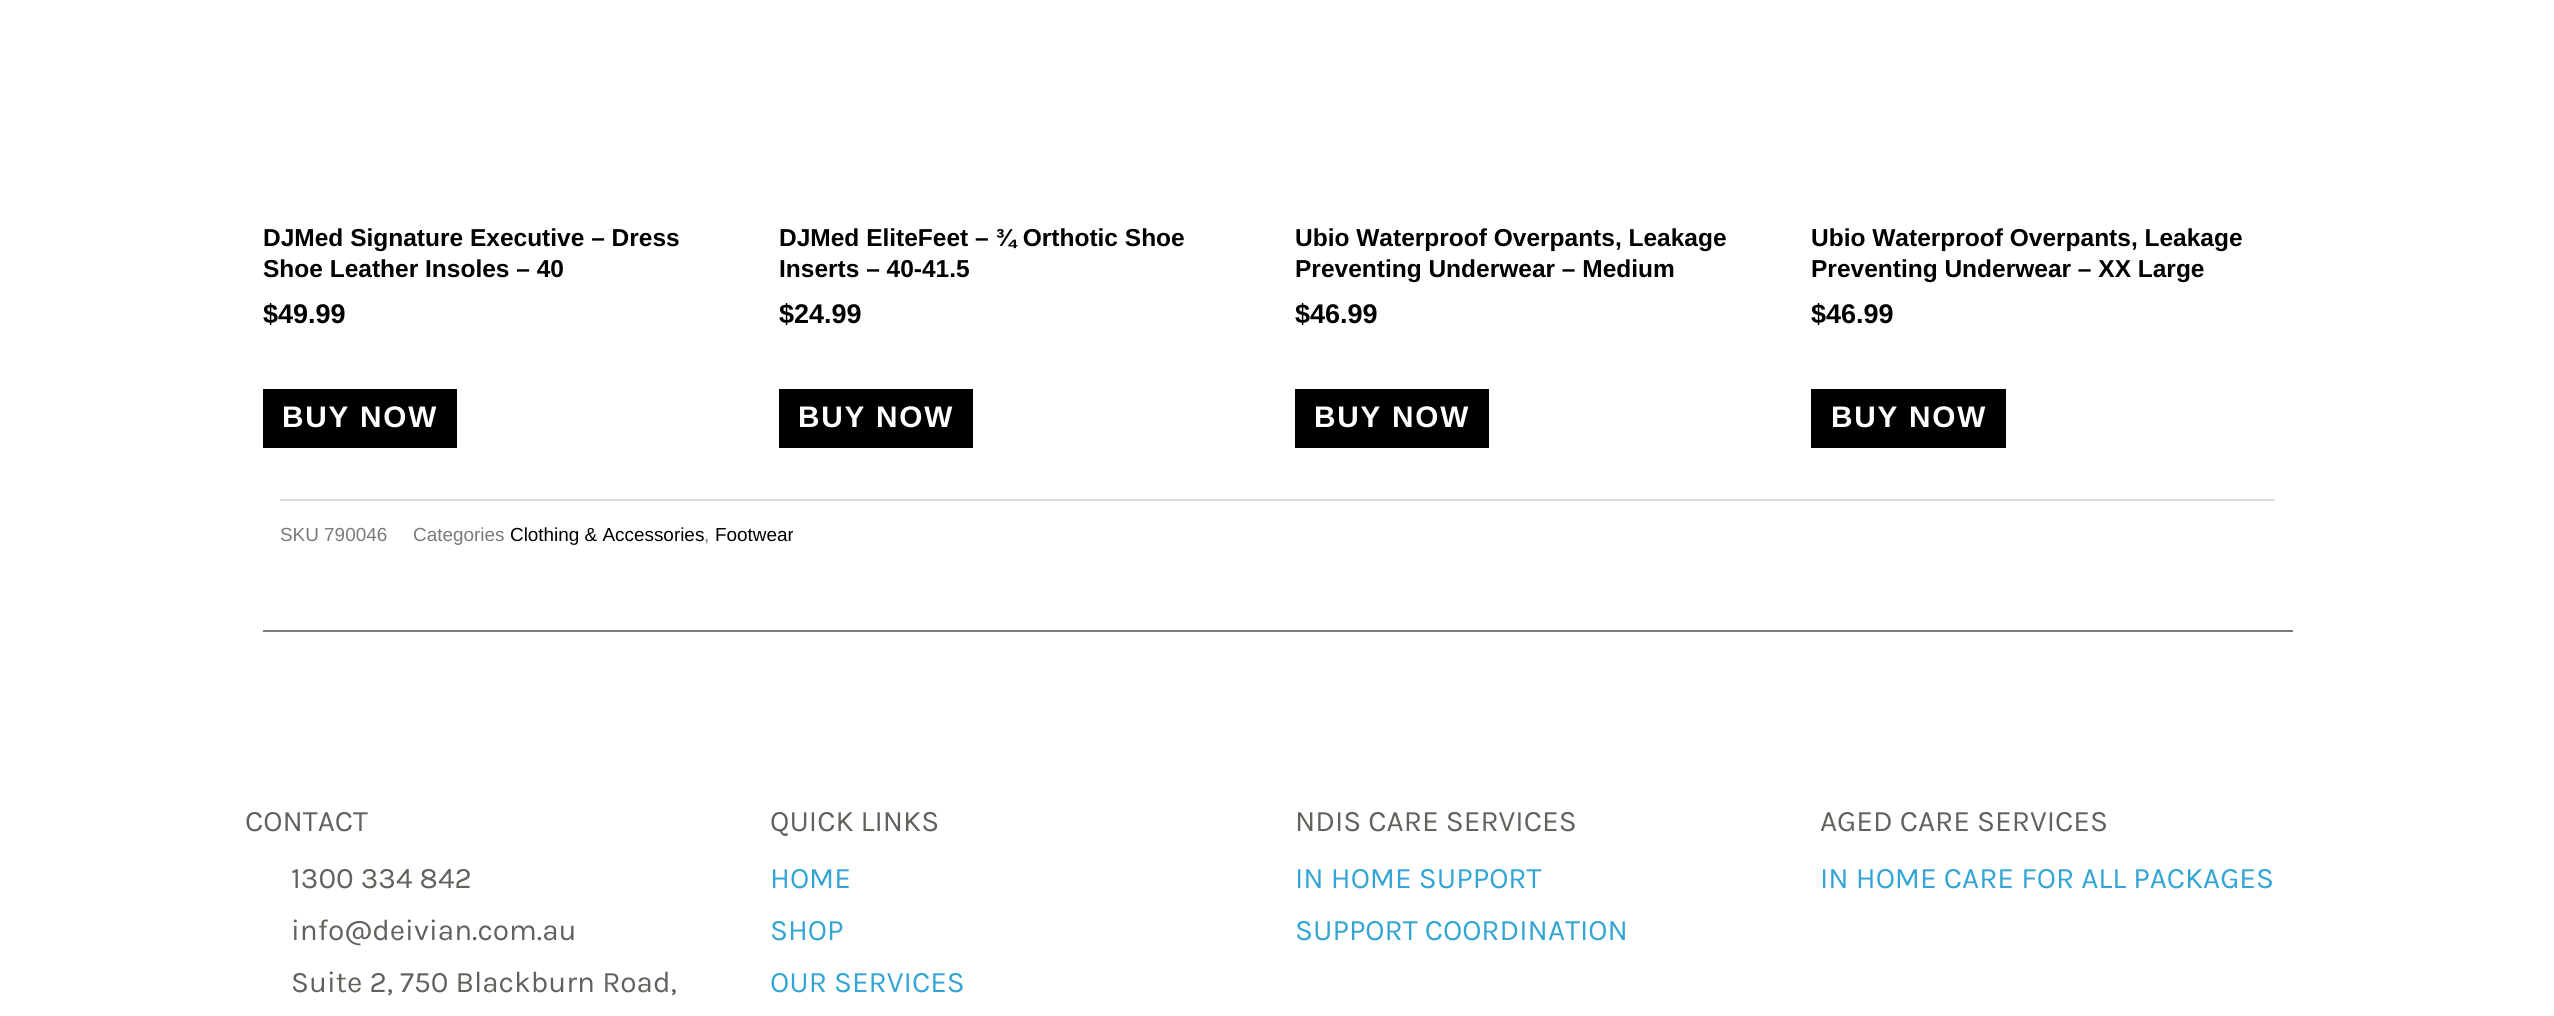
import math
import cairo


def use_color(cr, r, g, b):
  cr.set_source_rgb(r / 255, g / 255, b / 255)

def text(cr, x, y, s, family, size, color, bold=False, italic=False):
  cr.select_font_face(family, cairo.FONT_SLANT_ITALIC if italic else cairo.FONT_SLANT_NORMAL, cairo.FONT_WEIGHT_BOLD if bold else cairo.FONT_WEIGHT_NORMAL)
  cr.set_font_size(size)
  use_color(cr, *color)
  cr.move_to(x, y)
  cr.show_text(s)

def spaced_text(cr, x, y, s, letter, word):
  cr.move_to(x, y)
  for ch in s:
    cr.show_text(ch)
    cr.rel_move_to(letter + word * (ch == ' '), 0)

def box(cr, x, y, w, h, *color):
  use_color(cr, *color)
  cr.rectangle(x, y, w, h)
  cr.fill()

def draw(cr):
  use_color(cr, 255, 255, 255)
  cr.paint()
  box(cr, 263, 389, 194, 59, 0, 0, 0)
  box(cr, 779, 389, 194, 59, 0, 0, 0)
  box(cr, 1295, 389, 194, 59, 0, 0, 0)
  box(cr, 1811, 389, 195, 59, 0, 0, 0)
  box(cr, 263, 630, 2030, 2, 122, 122, 122)
  box(cr, 280, 499, 1995, 2, 221, 221, 221)
  text(cr, 263, 246, "DJMed Signature Executive – Dress", "Liberation Sans", 24.5, (0, 0, 0), bold=True)
  text(cr, 263, 277, "Shoe Leather Insoles – 40", "Liberation Sans", 24.5, (0, 0, 0), bold=True)
  text(cr, 263, 323, "$49.99", "Liberation Sans", 27, (0, 0, 0), bold=True)
  cr.set_font_size(29.75)
  use_color(cr, 255, 255, 255)
  spaced_text(cr, 282, 427, "BUY NOW", 1.75, 0)
  text(cr, 779, 246, "DJMed EliteFeet – ¾ Orthotic Shoe", "Liberation Sans", 24.5, (0, 0, 0), bold=True)
  text(cr, 779, 277, "Inserts – 40-41.5", "Liberation Sans", 24.5, (0, 0, 0), bold=True)
  text(cr, 779, 323, "$24.99", "Liberation Sans", 27, (0, 0, 0), bold=True)
  cr.set_font_size(29.75)
  use_color(cr, 255, 255, 255)
  spaced_text(cr, 798, 427, "BUY NOW", 1.75, 0)
  text(cr, 1295, 246, "Ubio Waterproof Overpants, Leakage", "Liberation Sans", 24.5, (0, 0, 0), bold=True)
  text(cr, 1295, 277, "Preventing Underwear – Medium", "Liberation Sans", 24.5, (0, 0, 0), bold=True)
  text(cr, 1295, 323, "$46.99", "Liberation Sans", 27, (0, 0, 0), bold=True)
  cr.set_font_size(29.75)
  use_color(cr, 255, 255, 255)
  spaced_text(cr, 1314, 427, "BUY NOW", 1.75, 0)
  text(cr, 1811, 246, "Ubio Waterproof Overpants, Leakage", "Liberation Sans", 24.5, (0, 0, 0), bold=True)
  text(cr, 1811, 277, "Preventing Underwear – XX Large", "Liberation Sans", 24.5, (0, 0, 0), bold=True)
  text(cr, 1811, 323, "$46.99", "Liberation Sans", 27, (0, 0, 0), bold=True)
  cr.set_font_size(29.75)
  use_color(cr, 255, 255, 255)
  spaced_text(cr, 1831, 427, "BUY NOW", 1.75, 0)
  text(cr, 280, 541, "SKU 790046", "Liberation Sans", 18.9, (122, 122, 122))
  text(cr, 413, 541, "Categories", "Liberation Sans", 18.9, (122, 122, 122))
  text(cr, 510, 541, "Clothing & Accessories", "Liberation Sans", 18.9, (0, 0, 0))
  text(cr, 704, 541, ",", "Liberation Sans", 18.9, (122, 122, 122))
  text(cr, 715, 541, "Footwear", "Liberation Sans", 18.9, (0, 0, 0))
  text(cr, 245, 831, "CONTACT", "Karla", 29.75, (98, 97, 92))
  text(cr, 291, 888, "1300 334 842", "Karla", 29.75, (98, 97, 92))
  text(cr, 291, 940, "info@deivian.com.au", "Karla", 29.75, (98, 97, 92))
  text(cr, 291, 992, "Suite 2, 750 Blackburn Road,", "Karla", 29.75, (98, 97, 92))
  text(cr, 770, 831, "QUICK LINKS", "Karla", 29.75, (98, 97, 92))
  text(cr, 770, 888, "HOME", "Karla", 29.75, (50, 164, 213))
  text(cr, 770, 940, "SHOP", "Karla", 29.75, (50, 164, 213))
  text(cr, 770, 992, "OUR SERVICES", "Karla", 29.75, (50, 164, 213))
  text(cr, 1295, 831, "NDIS CARE SERVICES", "Karla", 29.75, (98, 97, 92))
  text(cr, 1295, 888, "IN HOME SUPPORT", "Karla", 29.75, (50, 164, 213))
  text(cr, 1295, 940, "SUPPORT COORDINATION", "Karla", 29.75, (50, 164, 213))
  text(cr, 1820, 831, "AGED CARE SERVICES", "Karla", 29.75, (98, 97, 92))
  text(cr, 1820, 888, "IN HOME CARE FOR ALL PACKAGES", "Karla", 29.75, (50, 164, 213))


surface = cairo.ImageSurface(cairo.FORMAT_RGB24, 2554, 1016)
cr = cairo.Context(surface)
options = cairo.FontOptions()
options.set_hint_metrics(cairo.HINT_METRICS_OFF)
options.set_hint_style(cairo.HINT_STYLE_NONE)
cr.set_font_options(options)
cr.set_miter_limit(4)
draw(cr)
surface.write_to_png("out.png")
